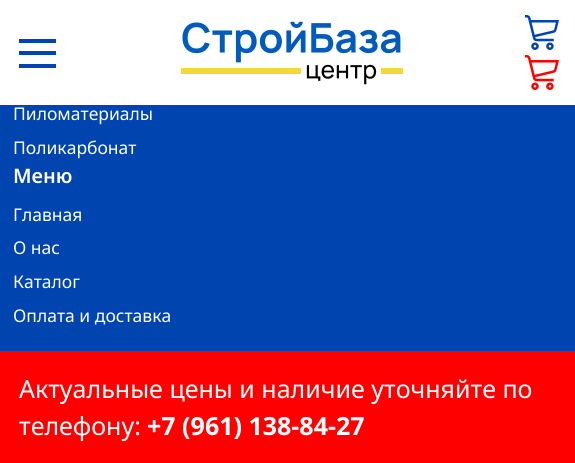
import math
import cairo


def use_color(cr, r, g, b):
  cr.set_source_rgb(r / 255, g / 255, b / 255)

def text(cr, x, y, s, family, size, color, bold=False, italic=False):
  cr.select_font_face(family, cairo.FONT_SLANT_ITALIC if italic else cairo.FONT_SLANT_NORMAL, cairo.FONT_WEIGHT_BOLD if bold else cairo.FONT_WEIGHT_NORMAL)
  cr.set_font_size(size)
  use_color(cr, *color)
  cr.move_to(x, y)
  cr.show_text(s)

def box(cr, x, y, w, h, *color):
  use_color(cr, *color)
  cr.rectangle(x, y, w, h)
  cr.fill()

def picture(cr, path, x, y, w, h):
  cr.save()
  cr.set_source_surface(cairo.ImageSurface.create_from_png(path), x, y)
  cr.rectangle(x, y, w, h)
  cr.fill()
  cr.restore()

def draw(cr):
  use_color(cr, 0, 68, 175)
  cr.paint()
  box(cr, 0, 0, 575, 105, 255, 255, 255)
  box(cr, 19, 51, 37, 4, 0, 68, 175)
  box(cr, 19, 39, 37, 4, 0, 68, 175)
  box(cr, 19, 64, 37, 4, 0, 68, 175)
  picture(cr, "img_01.png", 181, 21, 222, 64)
  picture(cr, "img_02.png", 525, 15, 34, 35)
  picture(cr, "img_03.png", 525, 55, 34, 35)
  box(cr, 0, 351, 575, 112, 255, 0, 0)
  text(cr, 13, 120, "Пиломатериалы", "Noto Sans", 17.5, (255, 255, 255))
  text(cr, 13, 154, "Поликарбонат", "Noto Sans", 17.5, (255, 255, 255))
  text(cr, 13, 183, "Меню", "Noto Sans SemiBold", 20, (255, 255, 255))
  text(cr, 13, 221, "Главная", "Noto Sans", 17.5, (255, 255, 255))
  text(cr, 13, 254, "О нас", "Noto Sans", 17.5, (255, 255, 255))
  text(cr, 13, 288, "Каталог", "Noto Sans", 17.5, (255, 255, 255))
  text(cr, 13, 322, "Оплата и доставка", "Noto Sans", 17.5, (255, 255, 255))
  text(cr, 19, 398, "Актуальные цены и наличие уточняйте по", "Noto Sans", 25, (255, 255, 255))
  text(cr, 19, 435, "телефону:", "Noto Sans", 25, (255, 255, 255))
  text(cr, 147, 435, "+7 (961) 138-84-27", "Noto Sans", 25, (255, 255, 255), bold=True)


surface = cairo.ImageSurface(cairo.FORMAT_RGB24, 575, 463)
cr = cairo.Context(surface)
options = cairo.FontOptions()
options.set_hint_metrics(cairo.HINT_METRICS_OFF)
options.set_hint_style(cairo.HINT_STYLE_NONE)
cr.set_font_options(options)
cr.set_miter_limit(4)
draw(cr)
surface.write_to_png("out.png")
